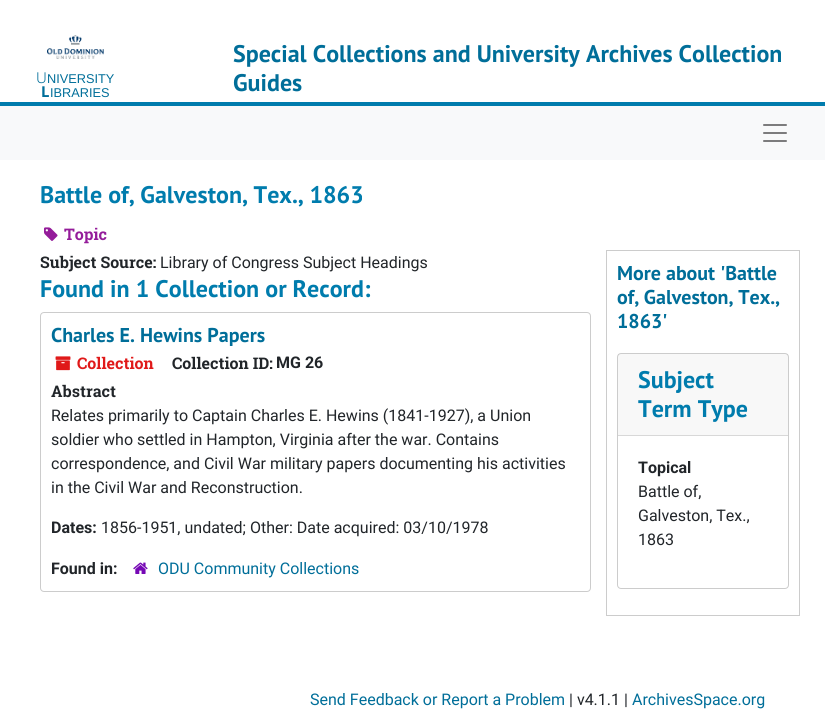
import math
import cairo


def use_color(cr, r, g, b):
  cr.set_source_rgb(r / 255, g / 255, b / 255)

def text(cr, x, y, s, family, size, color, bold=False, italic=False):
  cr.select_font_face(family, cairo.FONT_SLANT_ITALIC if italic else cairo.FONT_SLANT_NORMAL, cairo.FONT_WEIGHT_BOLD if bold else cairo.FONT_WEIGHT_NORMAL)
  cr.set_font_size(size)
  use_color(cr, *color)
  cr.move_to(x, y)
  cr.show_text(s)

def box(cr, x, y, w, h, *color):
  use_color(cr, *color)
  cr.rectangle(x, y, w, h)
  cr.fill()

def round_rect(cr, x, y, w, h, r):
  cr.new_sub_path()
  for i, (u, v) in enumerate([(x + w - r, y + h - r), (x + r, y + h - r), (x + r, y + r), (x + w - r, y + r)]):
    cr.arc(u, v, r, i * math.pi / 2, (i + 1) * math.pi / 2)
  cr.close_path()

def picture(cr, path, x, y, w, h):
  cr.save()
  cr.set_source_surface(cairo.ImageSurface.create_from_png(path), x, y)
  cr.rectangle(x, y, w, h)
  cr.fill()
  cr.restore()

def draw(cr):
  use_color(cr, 255, 255, 255)
  cr.paint()
  box(cr, 0, 102, 825, 4, 0, 124, 173)
  picture(cr, "img_01.png", 47, 35, 57, 24)
  box(cr, 0, 106, 825, 54, 248, 249, 250)
  picture(cr, "img_02.png", 763, 124, 24, 18)
  picture(cr, "img_03.png", 44, 227, 14, 14)
  round_rect(cr, 40.5, 312.5, 550, 279, 3.5)
  use_color(cr, 204, 204, 204)
  cr.set_line_width(1)
  cr.stroke()
  picture(cr, "img_04.png", 55, 356, 16, 15)
  picture(cr, "img_05.png", 133, 562, 15, 12)
  cr.rectangle(606.5, 250.5, 193, 365)
  cr.stroke()
  round_rect(cr, 617.5, 353.5, 171, 235, 3.5)
  cr.stroke()
  cr.set_source_rgba(0, 0, 0, 0.03)
  cr.rectangle(618, 354, 170, 81)
  cr.fill()
  box(cr, 618, 435, 170, 1, 216, 216, 216)
  text(cr, 36, 83, "U", "Noto Sans Light", 15, (0, 110, 153))
  text(cr, 47, 83, "NIVERSITY", "Liberation Sans", 12.75, (0, 110, 153))
  text(cr, 41, 97, "L", "Noto Sans", 15, (0, 110, 153), bold=True)
  text(cr, 50, 97, "IBRARIES", "Liberation Sans", 12.75, (0, 110, 153))
  text(cr, 233, 62, "Special Collections and University Archives Collection", "PT Sans", 24, (0, 110, 153), bold=True)
  text(cr, 233, 91, "Guides", "PT Sans", 24, (0, 110, 153), bold=True)
  text(cr, 40, 203, "Battle of, Galveston, Tex., 1863", "PT Sans", 24, (0, 124, 173), bold=True)
  text(cr, 64, 240, "Topic", "Roboto Slab", 16, (148, 28, 154), bold=True)
  text(cr, 40, 268, "Subject Source:", "Roboto Slab", 16, (33, 37, 41), bold=True)
  text(cr, 160, 268, "Library of Congress Subject Headings", "Roboto", 16, (33, 37, 41))
  text(cr, 40, 297, "Found in 1 Collection or Record:", "PT Sans", 24, (0, 124, 173), bold=True)
  text(cr, 51, 342, "Charles E. Hewins Papers", "PT Sans", 20, (0, 110, 153), bold=True)
  text(cr, 77, 369, "Collection", "Roboto Slab", 16, (224, 25, 25), bold=True)
  text(cr, 172, 369, "Collection ID:", "Roboto Slab", 16, (33, 37, 41), bold=True)
  text(cr, 276, 368, "MG 26", "Roboto", 16, (33, 37, 41), bold=True)
  text(cr, 51, 397, "Abstract", "Roboto Slab", 16, (33, 37, 41), bold=True)
  text(cr, 51, 421, "Relates primarily to Captain Charles E. Hewins (1841-1927), a Union", "Roboto", 16, (33, 37, 41))
  text(cr, 51, 445, "soldier who settled in Hampton, Virginia after the war. Contains", "Roboto", 16, (33, 37, 41))
  text(cr, 51, 469, "correspondence, and Civil War military papers documenting his activities", "Roboto", 16, (33, 37, 41))
  text(cr, 51, 493, "in the Civil War and Reconstruction.", "Roboto", 16, (33, 37, 41))
  text(cr, 51, 533, "Dates:", "Roboto", 16, (33, 37, 41), bold=True)
  text(cr, 101, 533, "1856-1951, undated; Other: Date acquired: 03/10/1978", "Roboto", 16, (33, 37, 41))
  text(cr, 51, 574, "Found in:", "Roboto", 16, (33, 37, 41), bold=True)
  text(cr, 158, 574, "ODU Community Collections", "Roboto", 16, (0, 110, 153))
  text(cr, 617, 280, "More about 'Battle", "PT Sans", 20, (0, 110, 153), bold=True)
  text(cr, 617, 304, "of, Galveston, Tex.,", "PT Sans", 20, (0, 110, 153), bold=True)
  text(cr, 617, 328, "1863'", "PT Sans", 20, (0, 110, 153), bold=True)
  text(cr, 638, 388, "Subject", "PT Sans", 24, (0, 124, 173), bold=True)
  text(cr, 638, 417, "Term Type", "PT Sans", 24, (0, 124, 173), bold=True)
  text(cr, 638, 473, "Topical", "Roboto", 16, (33, 37, 41), bold=True)
  text(cr, 638, 497, "Battle of,", "Roboto", 16, (33, 37, 41))
  text(cr, 638, 521, "Galveston, Tex.,", "Roboto", 16, (33, 37, 41))
  text(cr, 638, 545, "1863", "Roboto", 16, (33, 37, 41))
  text(cr, 310, 705, "Send Feedback or Report a Problem", "Roboto", 16, (0, 110, 153))
  text(cr, 569, 705, "| v4.1.1 |", "Roboto", 16, (33, 37, 41))
  text(cr, 632, 705, "ArchivesSpace.org", "Roboto", 16, (0, 110, 153))


surface = cairo.ImageSurface(cairo.FORMAT_RGB24, 825, 717)
cr = cairo.Context(surface)
options = cairo.FontOptions()
options.set_hint_metrics(cairo.HINT_METRICS_OFF)
options.set_hint_style(cairo.HINT_STYLE_NONE)
cr.set_font_options(options)
cr.set_miter_limit(4)
draw(cr)
surface.write_to_png("out.png")
